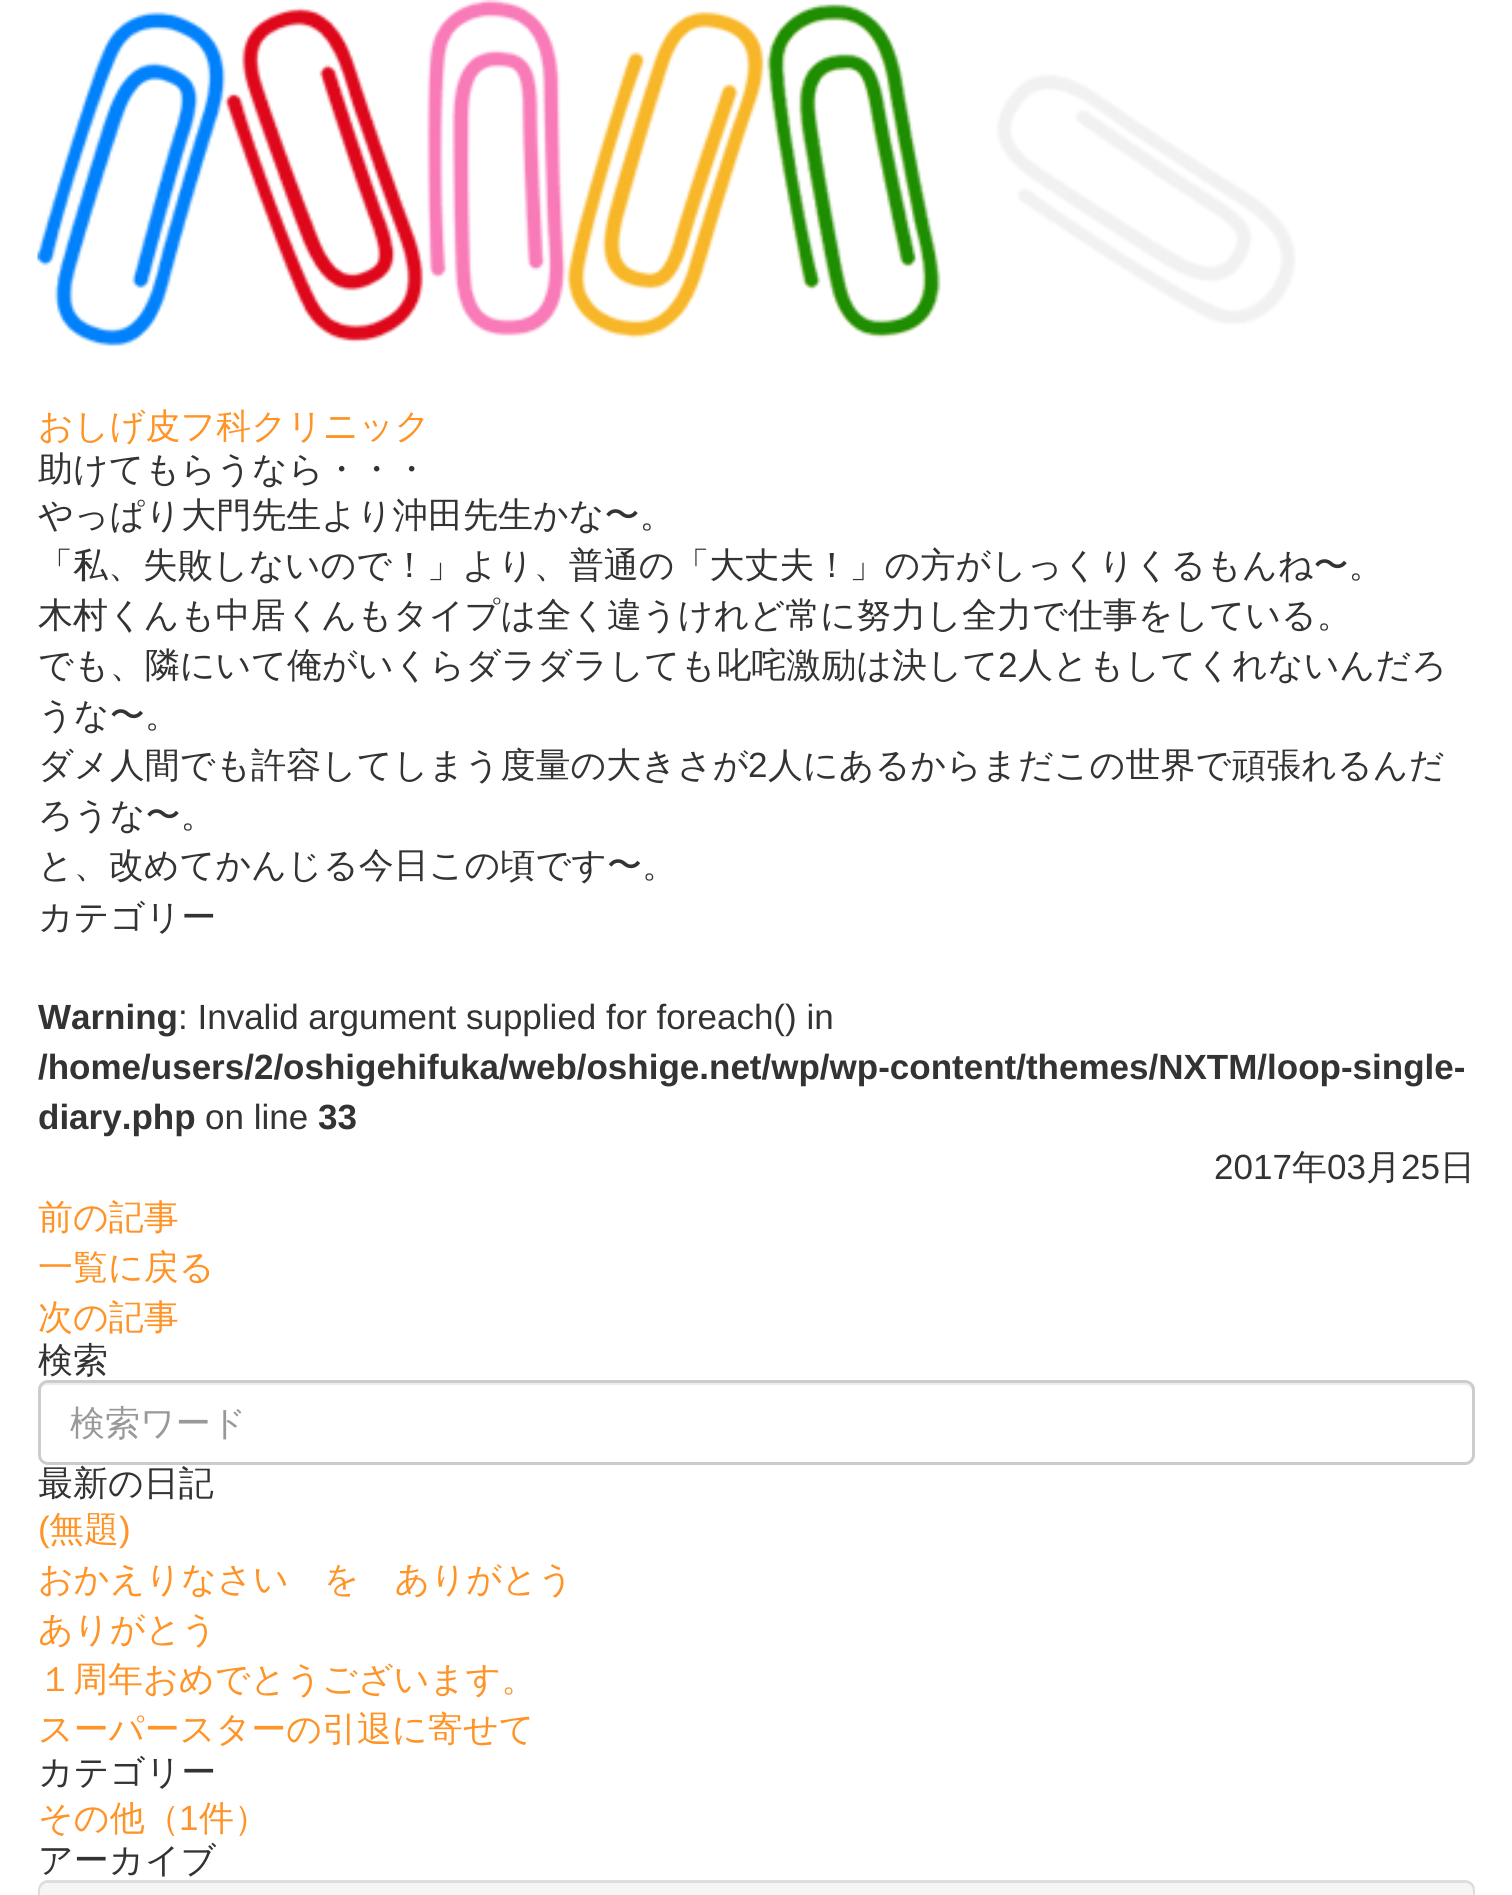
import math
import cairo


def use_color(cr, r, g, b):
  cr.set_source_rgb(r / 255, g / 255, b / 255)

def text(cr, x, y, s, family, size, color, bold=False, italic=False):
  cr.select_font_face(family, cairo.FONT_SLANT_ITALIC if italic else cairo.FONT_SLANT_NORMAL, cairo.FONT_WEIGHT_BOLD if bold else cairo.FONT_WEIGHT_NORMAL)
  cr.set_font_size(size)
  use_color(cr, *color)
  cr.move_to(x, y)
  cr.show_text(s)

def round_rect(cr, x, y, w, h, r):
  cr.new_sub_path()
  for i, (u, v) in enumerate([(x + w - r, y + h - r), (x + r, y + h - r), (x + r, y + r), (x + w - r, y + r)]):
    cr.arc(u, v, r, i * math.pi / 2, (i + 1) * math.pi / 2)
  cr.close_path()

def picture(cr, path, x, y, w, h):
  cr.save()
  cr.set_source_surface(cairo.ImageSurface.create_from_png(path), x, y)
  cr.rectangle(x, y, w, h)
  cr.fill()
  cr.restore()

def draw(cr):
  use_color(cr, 255, 255, 255)
  cr.paint()
  picture(cr, "img_01.png", 37, 0, 1259, 347)
  use_color(cr, 236, 236, 236)
  cr.new_path()
  cr.move_to(48, 1385)
  cr.line_to(1465, 1385)
  cr.curve_to(1469, 1385, 1472, 1388, 1472, 1392)
  cr.line_to(1472, 1459)
  cr.curve_to(1473, 1458, 1473, 1456, 1473, 1455)
  cr.line_to(1473, 1391)
  cr.curve_to(1473, 1387, 1469, 1383, 1465, 1383)
  cr.line_to(48, 1383)
  cr.curve_to(44, 1383, 40, 1387, 40, 1391)
  cr.line_to(40, 1392)
  cr.curve_to(40, 1388, 43, 1385, 48, 1385)
  cr.close_path()
  cr.fill()
  round_rect(cr, 39.5, 1381.5, 1434, 82, 8.5)
  use_color(cr, 204, 204, 204)
  cr.set_line_width(3)
  cr.stroke()
  round_rect(cr, 39.5, 1881.5, 1434, 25, 8.5)
  use_color(cr, 221, 221, 221)
  cr.stroke()
  use_color(cr, 245, 245, 245)
  cr.new_path()
  cr.move_to(48, 1883)
  cr.line_to(1465, 1883)
  cr.curve_to(1469.5, 1883, 1473, 1886.5, 1473, 1891)
  cr.line_to(1473, 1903)
  cr.line_to(40, 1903)
  cr.line_to(40, 1891)
  cr.curve_to(40, 1886.5, 43.5, 1883, 48, 1883)
  cr.close_path()
  cr.fill()
  text(cr, 38, 438, "おしげ皮フ科クリニック", "WenQuanYi Zen Hei Medium", 35, (255, 147, 38))
  text(cr, 38, 481, "助けてもらうなら・・・", "WenQuanYi Zen Hei Medium", 35, (51, 51, 51))
  text(cr, 38, 527, "やっぱり大門先生より沖田先生かな〜。", "WenQuanYi Zen Hei Medium", 35, (51, 51, 51))
  text(cr, 38, 577, "「私、失敗しないので！」より、普通の「大丈夫！」の方がしっくりくるもんね〜。", "WenQuanYi Zen Hei Medium", 35, (51, 51, 51))
  text(cr, 38, 627, "木村くんも中居くんもタイプは全く違うけれど常に努力し全力で仕事をしている。", "WenQuanYi Zen Hei Medium", 35, (51, 51, 51))
  text(cr, 38, 677, "でも、隣にいて俺がいくらダラダラしても叱咤激励は決して", "WenQuanYi Zen Hei Medium", 35, (51, 51, 51))
  text(cr, 998, 677, "2", "Liberation Sans", 35, (51, 51, 51))
  text(cr, 1018, 677, "人ともしてくれないんだろ", "WenQuanYi Zen Hei Medium", 35, (51, 51, 51))
  text(cr, 38, 727, "うな〜。", "WenQuanYi Zen Hei Medium", 35, (51, 51, 51))
  text(cr, 38, 777, "ダメ人間でも許容してしまう度量の大きさが", "WenQuanYi Zen Hei Medium", 35, (51, 51, 51))
  text(cr, 748, 777, "2", "Liberation Sans", 35, (51, 51, 51))
  text(cr, 768, 777, "人にあるからまだこの世界で頑張れるんだ", "WenQuanYi Zen Hei Medium", 35, (51, 51, 51))
  text(cr, 38, 827, "ろうな〜。", "WenQuanYi Zen Hei Medium", 35, (51, 51, 51))
  text(cr, 38, 877, "と、改めてかんじる今日この頃です〜。", "WenQuanYi Zen Hei Medium", 35, (51, 51, 51))
  text(cr, 38, 929, "カテゴリー", "WenQuanYi Zen Hei Medium", 35, (51, 51, 51))
  text(cr, 38, 1029, "Warning", "Liberation Sans", 35, (51, 51, 51), bold=True)
  text(cr, 178, 1029, ": Invalid argument supplied for foreach() in", "Liberation Sans", 35, (51, 51, 51))
  text(cr, 38, 1079, "/home/users/2/oshigehifuka/web/oshige.net/wp/wp-content/themes/NXTM/loop-single-", "Liberation Sans", 35, (51, 51, 51), bold=True)
  text(cr, 38, 1129, "diary.php", "Liberation Sans", 35, (51, 51, 51), bold=True)
  text(cr, 205, 1129, "on line", "Liberation Sans", 35, (51, 51, 51))
  text(cr, 318, 1129, "33", "Liberation Sans", 35, (51, 51, 51), bold=True)
  text(cr, 1214, 1179, "2017", "Liberation Sans", 35, (51, 51, 51))
  text(cr, 1292, 1179, "年", "WenQuanYi Zen Hei Medium", 35, (51, 51, 51))
  text(cr, 1327, 1179, "03", "Liberation Sans", 35, (51, 51, 51))
  text(cr, 1366, 1179, "月", "WenQuanYi Zen Hei Medium", 35, (51, 51, 51))
  text(cr, 1401, 1179, "25", "Liberation Sans", 35, (51, 51, 51))
  text(cr, 1440, 1179, "日", "WenQuanYi Zen Hei Medium", 35, (51, 51, 51))
  text(cr, 38, 1229, "前の記事", "WenQuanYi Zen Hei Medium", 35, (255, 147, 38))
  text(cr, 38, 1279, "一覧に戻る", "WenQuanYi Zen Hei Medium", 35, (255, 147, 38))
  text(cr, 38, 1329, "次の記事", "WenQuanYi Zen Hei Medium", 35, (255, 147, 38))
  text(cr, 38, 1372, "検索", "WenQuanYi Zen Hei Medium", 35, (51, 51, 51))
  text(cr, 70, 1435, "検索ワード", "WenQuanYi Zen Hei Medium", 35, (153, 153, 153))
  text(cr, 38, 1495, "最新の日記", "WenQuanYi Zen Hei Medium", 35, (51, 51, 51))
  text(cr, 38, 1541, "(", "Liberation Sans", 35, (255, 147, 38))
  text(cr, 49, 1541, "無題", "WenQuanYi Zen Hei Medium", 35, (255, 147, 38))
  text(cr, 119, 1541, ")", "Liberation Sans", 35, (255, 147, 38))
  text(cr, 38, 1591, "おかえりなさい　を　ありがとう", "WenQuanYi Zen Hei Medium", 35, (255, 147, 38))
  text(cr, 38, 1641, "ありがとう", "WenQuanYi Zen Hei Medium", 35, (255, 147, 38))
  text(cr, 38, 1691, "１周年おめでとうございます。", "WenQuanYi Zen Hei Medium", 35, (255, 147, 38))
  text(cr, 38, 1741, "スーパースターの引退に寄せて", "WenQuanYi Zen Hei Medium", 35, (255, 147, 38))
  text(cr, 38, 1784, "カテゴリー", "WenQuanYi Zen Hei Medium", 35, (51, 51, 51))
  text(cr, 38, 1830, "その他（", "WenQuanYi Zen Hei Medium", 35, (255, 147, 38))
  text(cr, 179, 1830, "1", "Liberation Sans", 35, (255, 147, 38))
  text(cr, 199, 1830, "件）", "WenQuanYi Zen Hei Medium", 35, (255, 147, 38))
  text(cr, 38, 1872, "アーカイブ", "WenQuanYi Zen Hei Medium", 35, (51, 51, 51))


surface = cairo.ImageSurface(cairo.FORMAT_RGB24, 1512, 1895)
cr = cairo.Context(surface)
options = cairo.FontOptions()
options.set_hint_metrics(cairo.HINT_METRICS_OFF)
options.set_hint_style(cairo.HINT_STYLE_NONE)
cr.set_font_options(options)
cr.set_miter_limit(4)
draw(cr)
surface.write_to_png("out.png")
